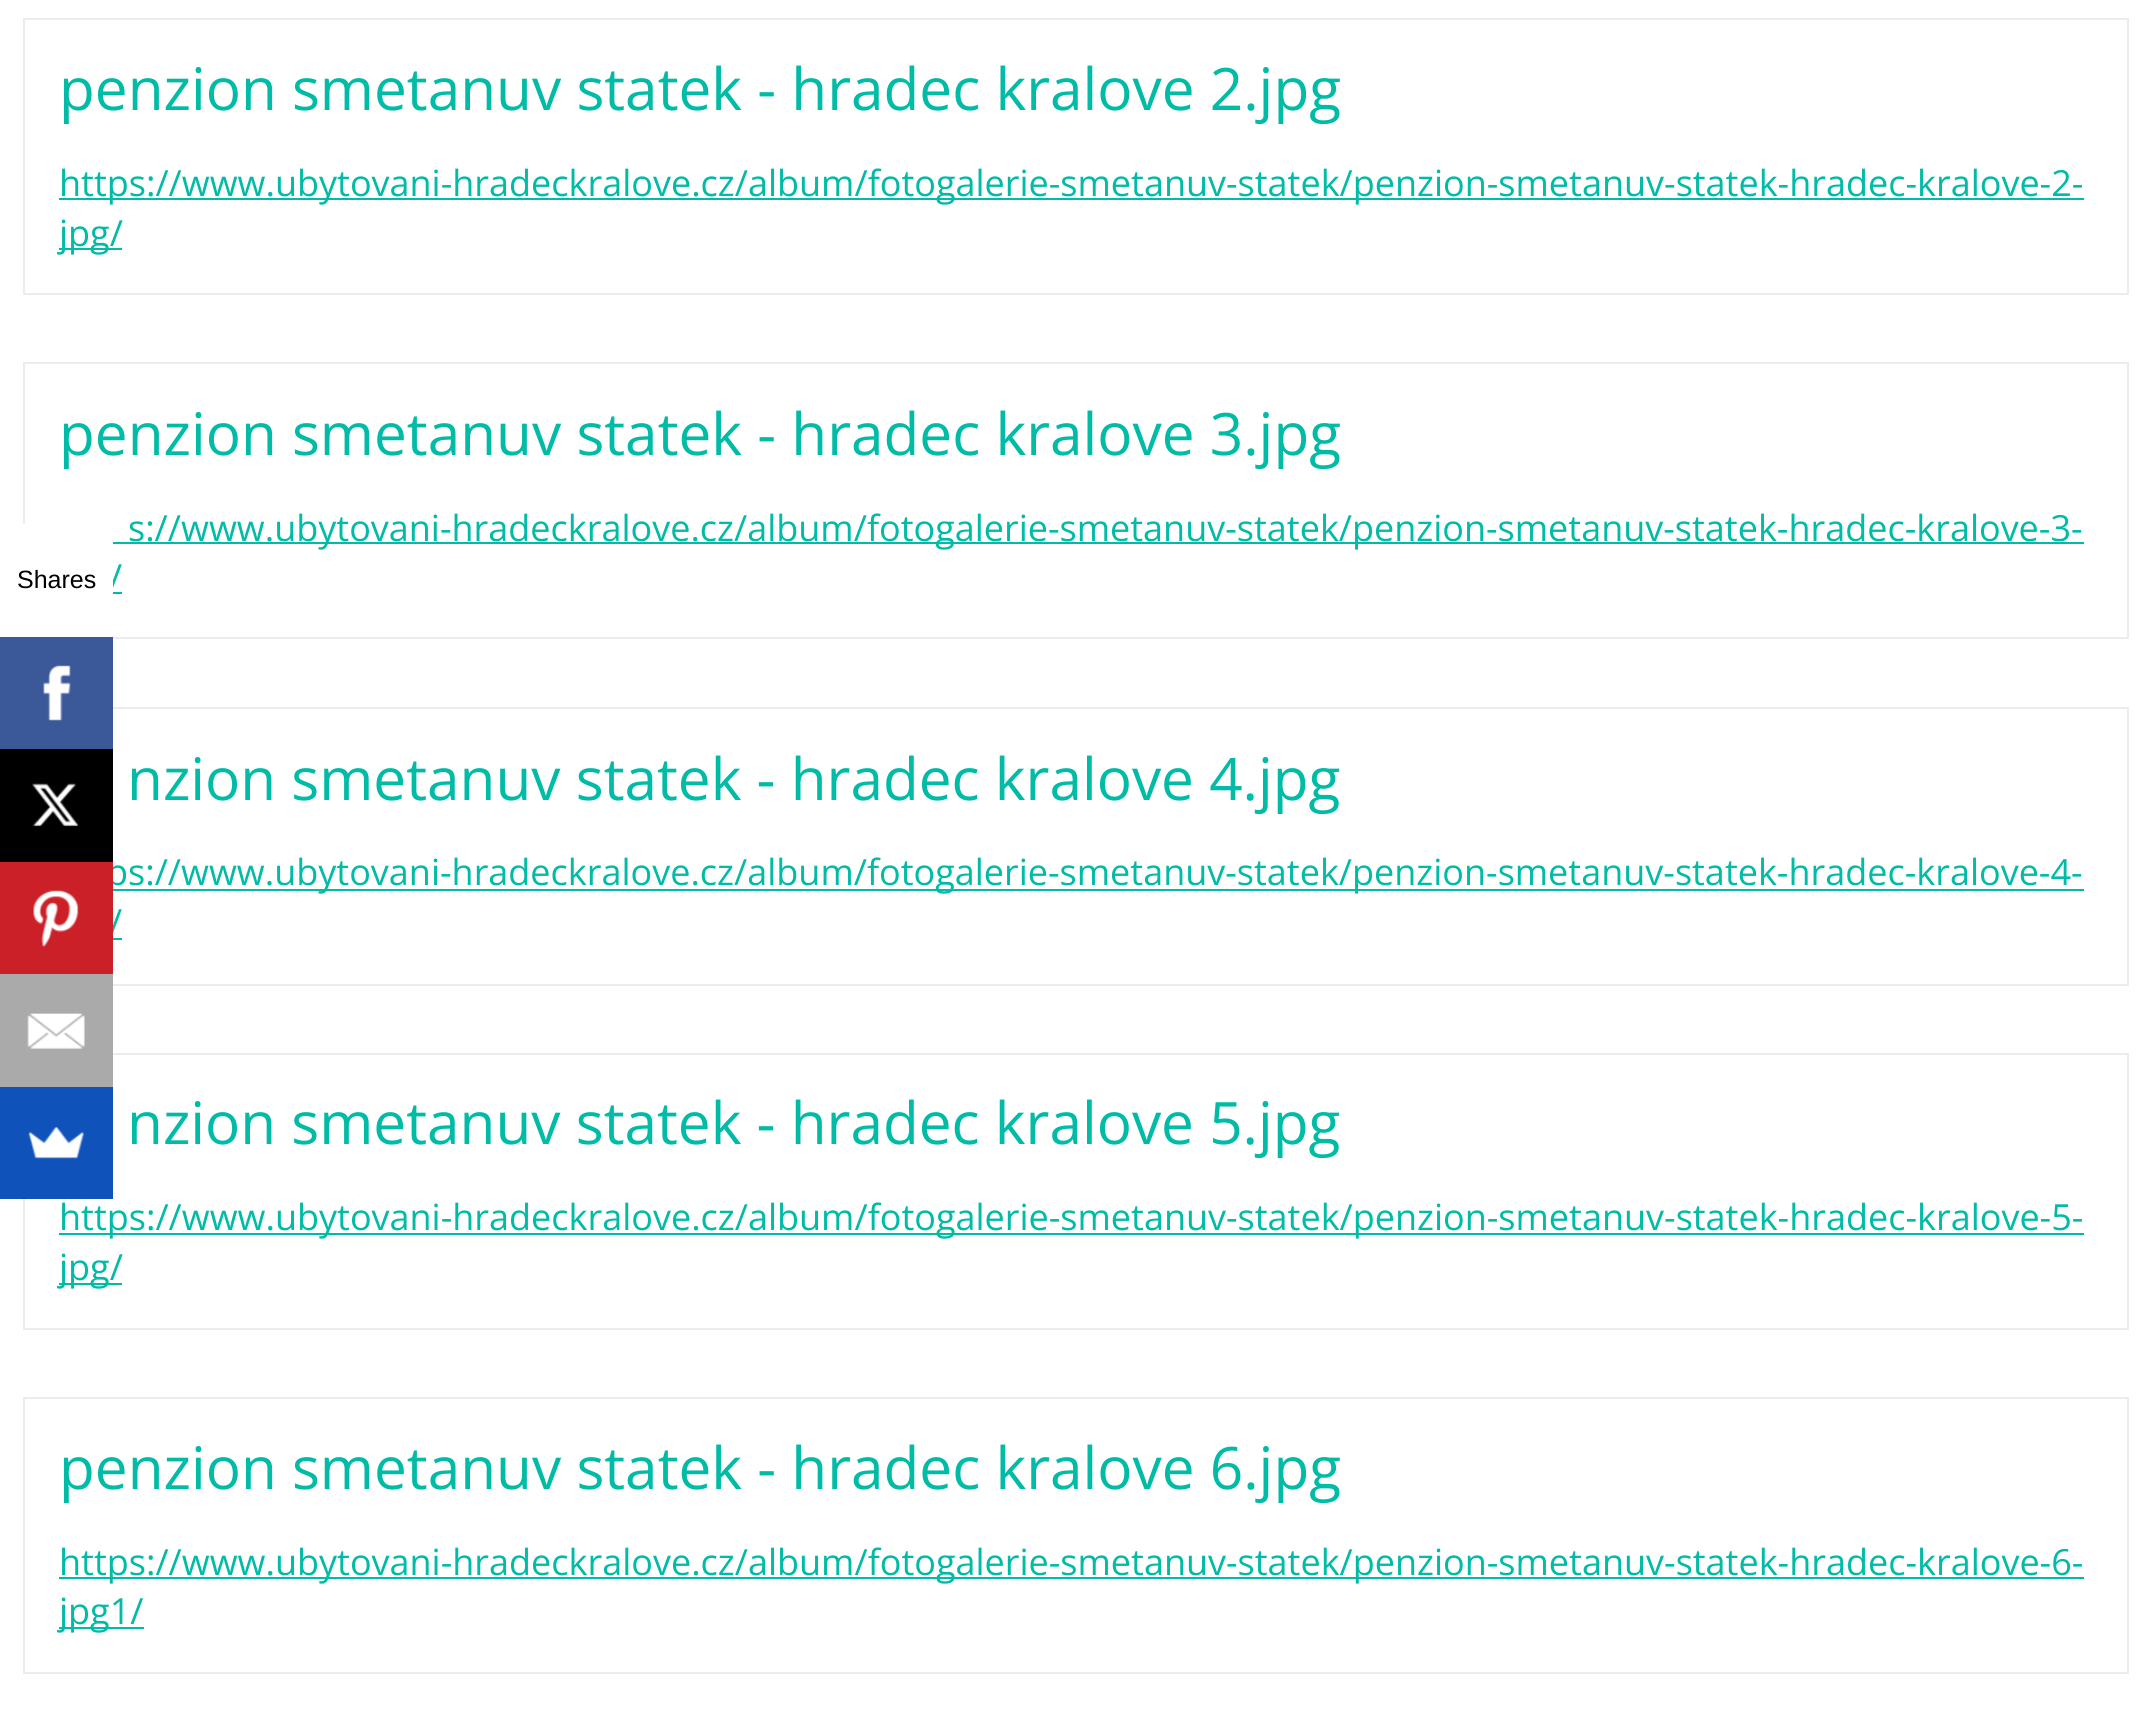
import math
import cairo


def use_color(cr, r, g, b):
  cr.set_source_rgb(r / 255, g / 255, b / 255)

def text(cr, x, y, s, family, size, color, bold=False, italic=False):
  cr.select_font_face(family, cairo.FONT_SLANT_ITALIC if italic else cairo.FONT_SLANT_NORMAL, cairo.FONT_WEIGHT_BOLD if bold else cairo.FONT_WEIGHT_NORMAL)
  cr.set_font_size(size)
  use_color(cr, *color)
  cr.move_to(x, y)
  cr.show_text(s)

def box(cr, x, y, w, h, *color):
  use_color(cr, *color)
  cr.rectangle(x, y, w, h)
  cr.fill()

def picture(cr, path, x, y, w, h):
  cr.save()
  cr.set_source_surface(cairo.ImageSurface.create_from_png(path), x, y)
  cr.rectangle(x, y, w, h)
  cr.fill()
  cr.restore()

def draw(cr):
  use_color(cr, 255, 255, 255)
  cr.paint()
  cr.rectangle(24, 19, 2104, 275)
  use_color(cr, 236, 236, 236)
  cr.stroke()
  box(cr, 59, 198, 2025, 2, 0, 187, 166)
  box(cr, 59, 248, 63, 2, 0, 187, 166)
  cr.rectangle(24, 363, 2104, 275)
  use_color(cr, 236, 236, 236)
  cr.stroke()
  box(cr, 113, 542, 1971, 2, 0, 187, 166)
  box(cr, 113, 592, 9, 2, 0, 187, 166)
  cr.rectangle(24, 708, 2104, 277)
  use_color(cr, 236, 236, 236)
  cr.stroke()
  box(cr, 113, 889, 1971, 2, 0, 187, 166)
  box(cr, 113, 938, 9, 2, 0, 187, 166)
  cr.rectangle(24, 1054, 2104, 275)
  use_color(cr, 236, 236, 236)
  cr.stroke()
  box(cr, 59, 1233, 2025, 2, 0, 187, 166)
  box(cr, 59, 1283, 63, 2, 0, 187, 166)
  cr.rectangle(24, 1398, 2104, 275)
  use_color(cr, 236, 236, 236)
  cr.stroke()
  box(cr, 59, 1577, 2025, 2, 0, 187, 166)
  box(cr, 59, 1627, 85, 2, 0, 187, 166)
  box(cr, 0, 637, 113, 112, 59, 89, 152)
  picture(cr, "img_01.png", 43, 665, 28, 56)
  box(cr, 0, 974, 113, 113, 170, 170, 170)
  picture(cr, "img_04.png", 27, 1013, 58, 36)
  box(cr, 0, 1087, 113, 112, 15, 82, 186)
  picture(cr, "img_05.png", 28, 1127, 56, 32)
  text(cr, 59, 110, "penzion smetanuv statek - hradec kralove 2.jpg", "Open Sans", 58.5, (0, 187, 166))
  text(cr, 59, 196, "https://www.ubytovani-hradeckralove.cz/album/fotogalerie-smetanuv-statek/penzion-smetanuv-statek-hradec-kralove-2-", "Open Sans", 36, (0, 187, 166))
  text(cr, 59, 246, "jpg/", "Open Sans", 36, (0, 187, 166))
  text(cr, 59, 455, "penzion smetanuv statek - hradec kralove 3.jpg", "Open Sans", 58.5, (0, 187, 166))
  text(cr, 128, 541, "s://www.ubytovani-hradeckralove.cz/album/fotogalerie-smetanuv-statek/penzion-smetanuv-statek-hradec-kralove-3-", "Open Sans", 36, (0, 187, 166))
  text(cr, 109, 590, "/", "Open Sans", 36, (0, 187, 166))
  text(cr, 127, 800, "nzion smetanuv statek - hradec kralove 4.jpg", "Open Sans", 58.5, (0, 187, 166))
  text(cr, 106, 885, "ps://www.ubytovani-hradeckralove.cz/album/fotogalerie-smetanuv-statek/penzion-smetanuv-statek-hradec-kralove-4-", "Open Sans", 36, (0, 187, 166))
  text(cr, 109, 935, "/", "Open Sans", 36, (0, 187, 166))
  text(cr, 127, 1144, "nzion smetanuv statek - hradec kralove 5.jpg", "Open Sans", 58.5, (0, 187, 166))
  text(cr, 59, 1230, "https://www.ubytovani-hradeckralove.cz/album/fotogalerie-smetanuv-statek/penzion-smetanuv-statek-hradec-kralove-5-", "Open Sans", 36, (0, 187, 166))
  text(cr, 59, 1280, "jpg/", "Open Sans", 36, (0, 187, 166))
  text(cr, 59, 1489, "penzion smetanuv statek - hradec kralove 6.jpg", "Open Sans", 58.5, (0, 187, 166))
  text(cr, 59, 1575, "https://www.ubytovani-hradeckralove.cz/album/fotogalerie-smetanuv-statek/penzion-smetanuv-statek-hradec-kralove-6-", "Open Sans", 36, (0, 187, 166))
  text(cr, 59, 1624, "jpg1/", "Open Sans", 36, (0, 187, 166))
  box(cr, 23, 524, 90, 113, 255, 255, 255)
  text(cr, 17, 588, "Shares", "Liberation Sans", 25, (0, 0, 0))
  box(cr, 0, 749, 113, 113, 0, 0, 0)
  picture(cr, "img_02.png", 32, 783, 47, 44)
  box(cr, 0, 862, 113, 112, 203, 32, 39)
  picture(cr, "img_03.png", 33, 890, 46, 57)


surface = cairo.ImageSurface(cairo.FORMAT_RGB24, 2150, 1722)
cr = cairo.Context(surface)
options = cairo.FontOptions()
options.set_hint_metrics(cairo.HINT_METRICS_OFF)
options.set_hint_style(cairo.HINT_STYLE_NONE)
cr.set_font_options(options)
cr.set_miter_limit(4)
draw(cr)
surface.write_to_png("out.png")
